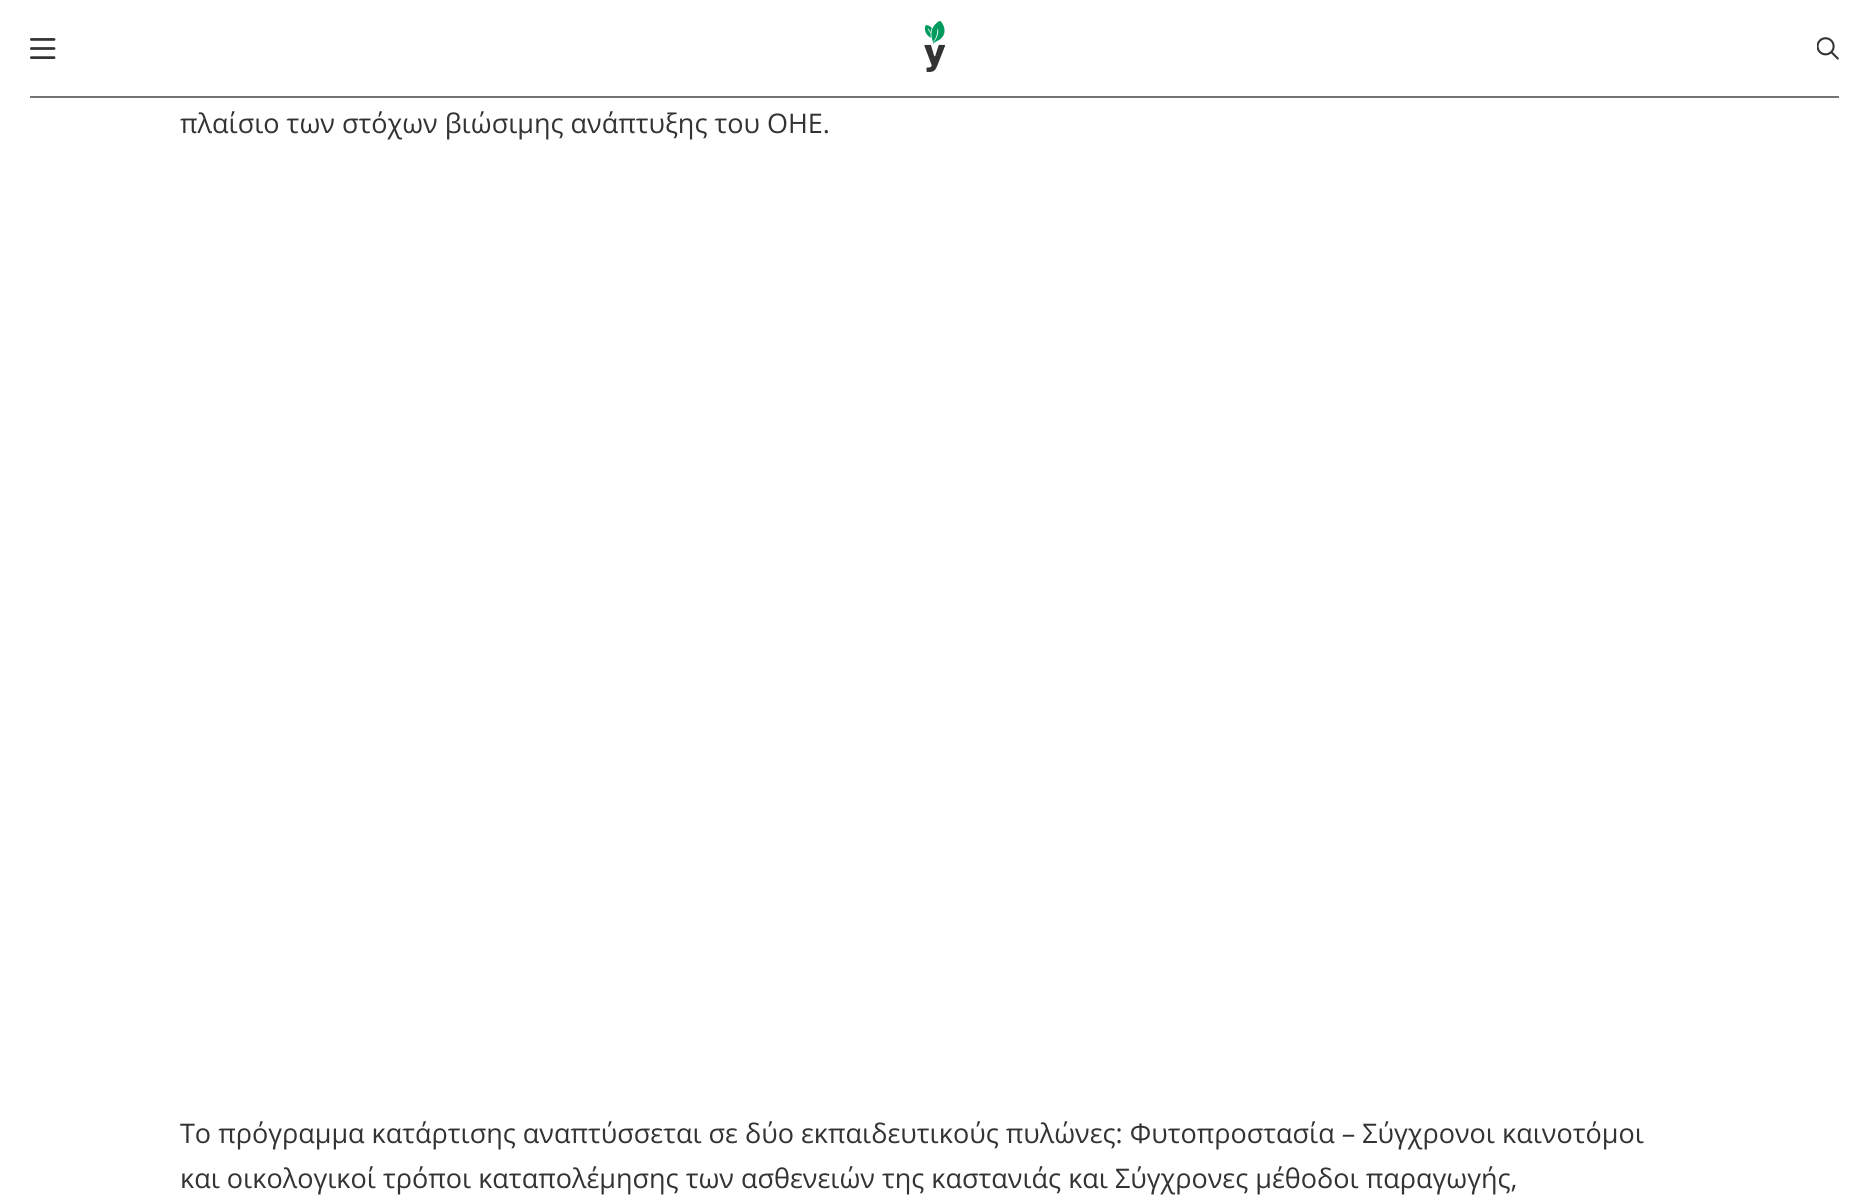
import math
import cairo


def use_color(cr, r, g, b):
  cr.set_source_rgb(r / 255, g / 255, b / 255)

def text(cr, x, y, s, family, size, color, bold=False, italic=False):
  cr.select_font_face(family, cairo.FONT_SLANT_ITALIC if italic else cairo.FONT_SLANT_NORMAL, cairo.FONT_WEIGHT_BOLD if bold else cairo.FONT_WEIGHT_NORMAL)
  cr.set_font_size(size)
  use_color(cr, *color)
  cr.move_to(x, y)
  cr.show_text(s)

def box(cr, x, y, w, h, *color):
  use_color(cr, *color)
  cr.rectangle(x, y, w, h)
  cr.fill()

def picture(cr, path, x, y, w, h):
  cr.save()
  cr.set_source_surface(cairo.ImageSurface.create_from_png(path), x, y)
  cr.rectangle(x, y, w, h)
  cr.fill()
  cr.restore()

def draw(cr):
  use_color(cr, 255, 255, 255)
  cr.paint()
  box(cr, 30, 96, 1809, 2, 116, 116, 116)
  picture(cr, "img_01.png", 30, 38, 26, 21)
  picture(cr, "img_02.png", 924, 21, 22, 51)
  picture(cr, "img_03.png", 1817, 37, 22, 23)
  text(cr, 180, 133, "πλαίσιο των στόχων βιώσιμης ανάπτυξης του ΟΗΕ.", "Open Sans", 27, (51, 51, 51))
  text(cr, 180, 1143, "Το πρόγραμμα κατάρτισης αναπτύσσεται σε δύο εκπαιδευτικούς πυλώνες: Φυτοπροστασία – Σύγχρονοι καινοτόμοι", "Open Sans", 27, (51, 51, 51))
  text(cr, 180, 1188, "και οικολογικοί τρόποι καταπολέμησης των ασθενειών της καστανιάς και Σύγχρονες μέθοδοι παραγωγής,", "Open Sans", 27, (51, 51, 51))


surface = cairo.ImageSurface(cairo.FORMAT_RGB24, 1869, 1198)
cr = cairo.Context(surface)
options = cairo.FontOptions()
options.set_hint_metrics(cairo.HINT_METRICS_OFF)
options.set_hint_style(cairo.HINT_STYLE_NONE)
cr.set_font_options(options)
cr.set_miter_limit(4)
draw(cr)
surface.write_to_png("out.png")
